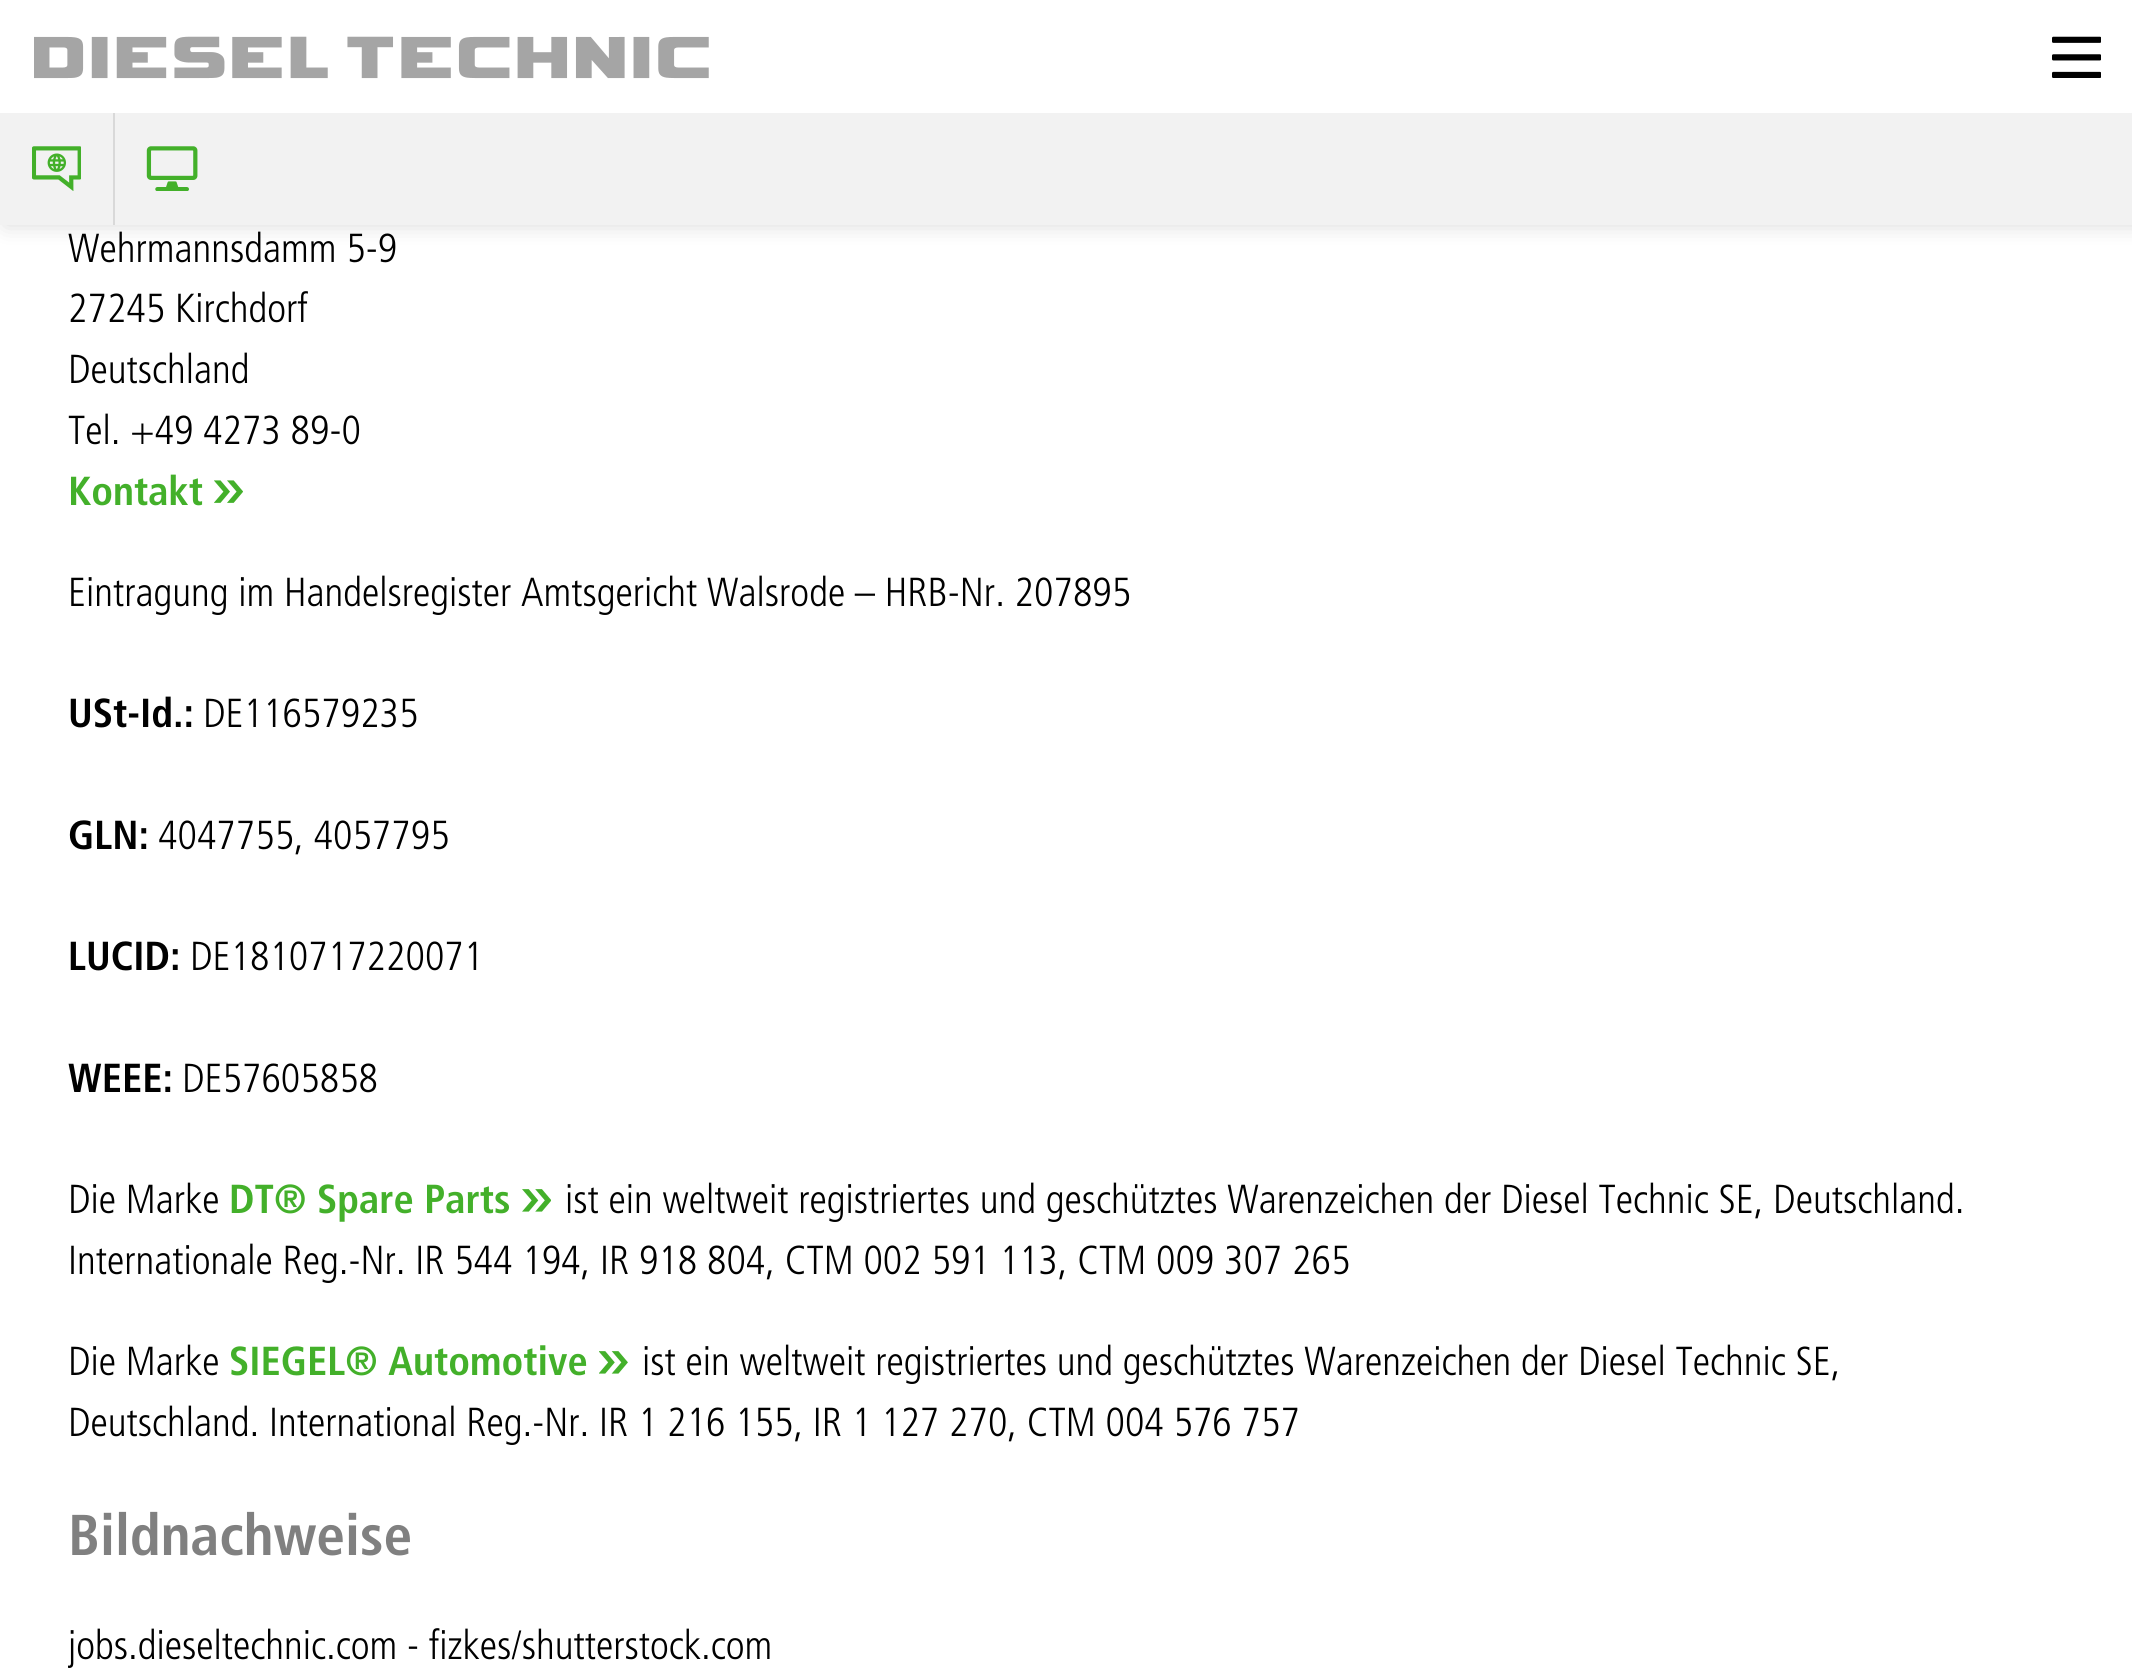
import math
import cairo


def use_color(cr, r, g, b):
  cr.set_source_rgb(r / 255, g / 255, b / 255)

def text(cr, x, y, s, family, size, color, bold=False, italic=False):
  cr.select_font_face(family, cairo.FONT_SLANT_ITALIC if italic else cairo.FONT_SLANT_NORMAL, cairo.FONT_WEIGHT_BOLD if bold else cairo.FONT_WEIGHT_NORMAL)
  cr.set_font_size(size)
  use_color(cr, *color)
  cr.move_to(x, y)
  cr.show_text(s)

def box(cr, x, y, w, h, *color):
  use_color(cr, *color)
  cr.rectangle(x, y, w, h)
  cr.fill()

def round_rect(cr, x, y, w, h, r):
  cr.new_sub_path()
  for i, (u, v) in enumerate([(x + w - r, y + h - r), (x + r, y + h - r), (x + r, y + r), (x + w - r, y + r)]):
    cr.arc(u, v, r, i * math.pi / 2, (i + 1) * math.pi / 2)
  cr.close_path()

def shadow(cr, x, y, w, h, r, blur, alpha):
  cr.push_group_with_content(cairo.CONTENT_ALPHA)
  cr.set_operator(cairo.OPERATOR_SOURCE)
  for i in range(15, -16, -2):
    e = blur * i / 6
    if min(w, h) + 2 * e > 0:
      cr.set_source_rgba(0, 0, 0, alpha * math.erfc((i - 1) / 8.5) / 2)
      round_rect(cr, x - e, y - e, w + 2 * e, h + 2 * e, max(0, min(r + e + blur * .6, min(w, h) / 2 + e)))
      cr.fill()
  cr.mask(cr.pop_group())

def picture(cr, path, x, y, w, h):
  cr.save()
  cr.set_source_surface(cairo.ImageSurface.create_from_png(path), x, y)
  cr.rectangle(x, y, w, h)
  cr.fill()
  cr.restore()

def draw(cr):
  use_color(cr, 255, 255, 255)
  cr.paint()
  use_color(cr, 0, 0, 0)
  shadow(cr, 5, 0, 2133, 225, 0, 11, 0.15)
  box(cr, 0, 0, 2132, 113, 255, 255, 255)
  picture(cr, "img_01.png", 34, 36, 675, 43)
  picture(cr, "img_02.png", 2052, 36, 49, 42)
  box(cr, 0, 113, 2132, 112, 242, 242, 242)
  picture(cr, "img_03.png", 32, 146, 49, 45)
  box(cr, 113, 113, 2, 112, 217, 217, 217)
  picture(cr, "img_04.png", 146, 146, 52, 45)
  picture(cr, "img_05.png", 214, 480, 29, 23)
  picture(cr, "img_06.png", 522, 1189, 29, 23)
  picture(cr, "img_07.png", 599, 1351, 29, 23)
  text(cr, 68, 262, "Wehrmannsdamm 5-9", "Frutiger", 40.5, (0, 0, 0))
  text(cr, 68, 322, "27245 Kirchdorf", "Frutiger", 40.5, (0, 0, 0))
  text(cr, 68, 383, "Deutschland", "Frutiger", 40.5, (0, 0, 0))
  text(cr, 68, 444, "Tel. +49 4273 89-0", "Frutiger", 40.5, (0, 0, 0))
  text(cr, 68, 505, "Kontakt", "Frutiger", 40.5, (67, 176, 42), bold=True)
  text(cr, 68, 606, "Eintragung im Handelsregister Amtsgericht Walsrode – HRB-Nr. 207895", "Frutiger", 40.5, (0, 0, 0))
  text(cr, 68, 727, "USt-Id.:", "Frutiger", 40.5, (0, 0, 0), bold=True)
  text(cr, 203, 727, "DE116579235", "Frutiger", 40.5, (0, 0, 0))
  text(cr, 68, 849, "GLN:", "Frutiger", 40.5, (0, 0, 0), bold=True)
  text(cr, 158, 849, "4047755, 4057795", "Frutiger", 40.5, (0, 0, 0))
  text(cr, 68, 970, "LUCID:", "Frutiger", 40.5, (0, 0, 0), bold=True)
  text(cr, 190, 970, "DE1810717220071", "Frutiger", 40.5, (0, 0, 0))
  text(cr, 68, 1092, "WEEE:", "Frutiger", 40.5, (0, 0, 0), bold=True)
  text(cr, 182, 1092, "DE57605858", "Frutiger", 40.5, (0, 0, 0))
  text(cr, 68, 1213, "Die Marke", "Frutiger", 40.5, (0, 0, 0))
  text(cr, 229, 1213, "DT® Spare Parts", "Frutiger", 40.5, (67, 176, 42), bold=True)
  text(cr, 565, 1213, "ist ein weltweit registriertes und geschütztes Warenzeichen der Diesel Technic SE, Deutschland.", "Frutiger", 40.5, (0, 0, 0))
  text(cr, 68, 1274, "Internationale Reg.-Nr. IR 544 194, IR 918 804, CTM 002 591 113, CTM 009 307 265", "Frutiger", 40.5, (0, 0, 0))
  text(cr, 68, 1375, "Die Marke", "Frutiger", 40.5, (0, 0, 0))
  text(cr, 229, 1375, "SIEGEL® Automotive", "Frutiger", 40.5, (67, 176, 42), bold=True)
  text(cr, 642, 1375, "ist ein weltweit registriertes und geschütztes Warenzeichen der Diesel Technic SE,", "Frutiger", 40.5, (0, 0, 0))
  text(cr, 68, 1436, "Deutschland. International Reg.-Nr. IR 1 216 155, IR 1 127 270, CTM 004 576 757", "Frutiger", 40.5, (0, 0, 0))
  text(cr, 68, 1555, "Bildnachweise", "Frutiger", 57.5, (128, 128, 128), bold=True)
  cr.save()
  cr.rectangle(68, 0, 1998, 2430)
  cr.clip()
  text(cr, 68, 1659, "jobs.dieseltechnic.com - fizkes/shutterstock.com", "Frutiger", 40.5, (0, 0, 0))
  cr.restore()


surface = cairo.ImageSurface(cairo.FORMAT_RGB24, 2132, 1669)
cr = cairo.Context(surface)
options = cairo.FontOptions()
options.set_hint_metrics(cairo.HINT_METRICS_OFF)
options.set_hint_style(cairo.HINT_STYLE_NONE)
cr.set_font_options(options)
cr.set_miter_limit(4)
draw(cr)
surface.write_to_png("out.png")
